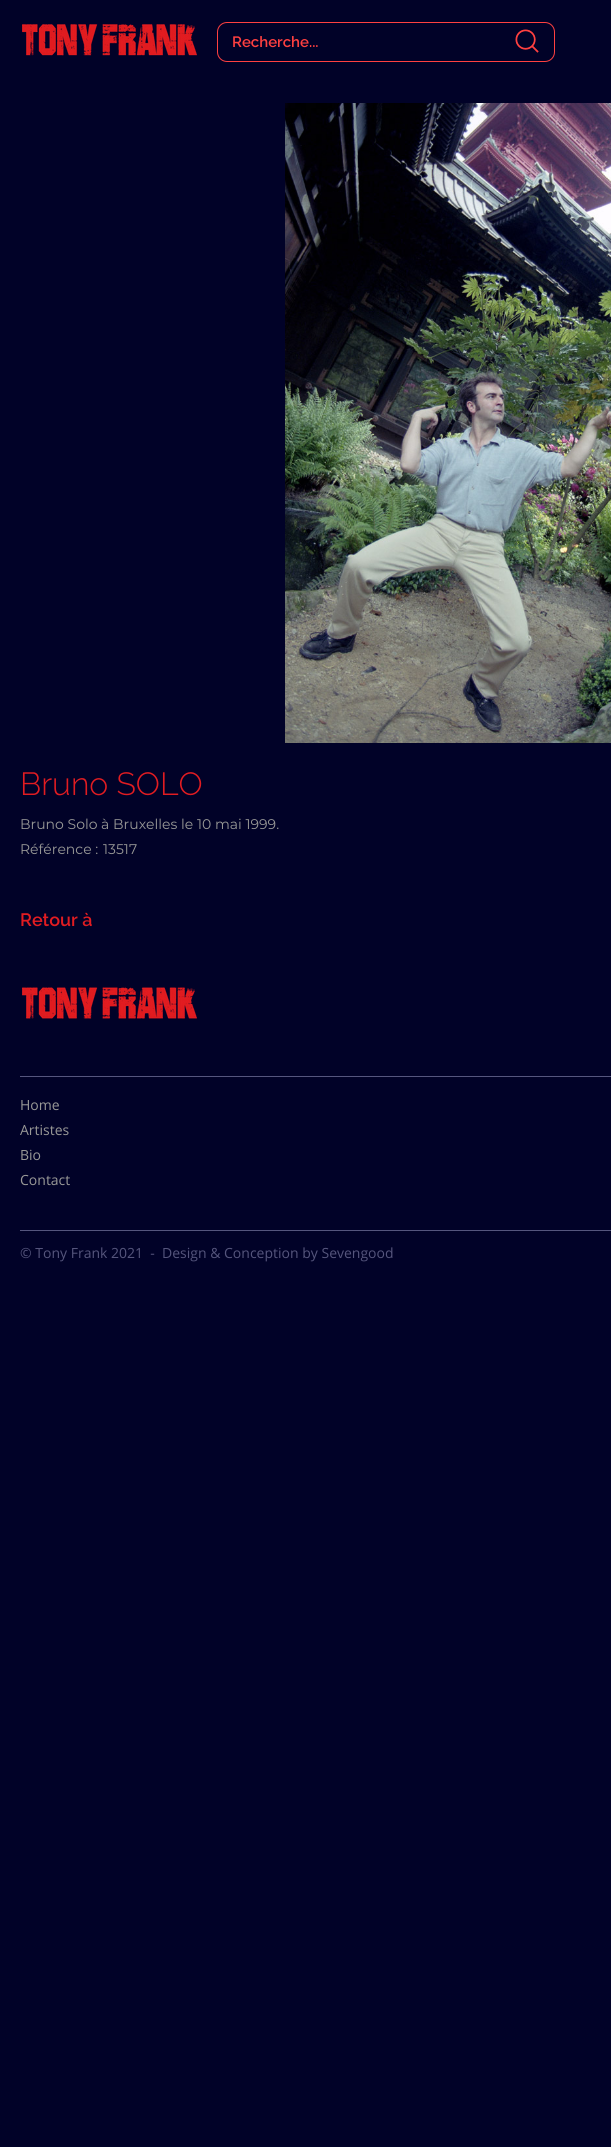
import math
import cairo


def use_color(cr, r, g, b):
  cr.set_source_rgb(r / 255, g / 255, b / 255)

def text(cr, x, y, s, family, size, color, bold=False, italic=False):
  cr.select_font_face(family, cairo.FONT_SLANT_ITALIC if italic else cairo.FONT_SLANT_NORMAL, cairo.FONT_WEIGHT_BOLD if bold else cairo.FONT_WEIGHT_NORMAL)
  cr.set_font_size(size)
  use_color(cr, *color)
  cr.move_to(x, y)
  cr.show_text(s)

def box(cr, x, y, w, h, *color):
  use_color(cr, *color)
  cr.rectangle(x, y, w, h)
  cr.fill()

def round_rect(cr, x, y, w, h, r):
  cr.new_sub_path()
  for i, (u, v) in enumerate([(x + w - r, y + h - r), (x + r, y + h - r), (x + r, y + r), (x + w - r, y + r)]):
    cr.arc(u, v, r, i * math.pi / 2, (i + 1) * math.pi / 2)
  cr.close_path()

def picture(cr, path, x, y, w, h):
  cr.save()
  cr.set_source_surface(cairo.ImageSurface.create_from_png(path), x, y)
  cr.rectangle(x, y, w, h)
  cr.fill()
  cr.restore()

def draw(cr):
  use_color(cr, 1, 2, 40)
  cr.paint()
  picture(cr, "img_01.png", 22, 24, 175, 32)
  round_rect(cr, 217.5, 22.5, 337, 39, 9.5)
  use_color(cr, 255, 64, 64)
  cr.set_line_width(1)
  cr.stroke()
  picture(cr, "img_02.png", 515, 29, 24, 24)
  picture(cr, "img_03.png", 285, 103, 326, 640)
  picture(cr, "img_04.png", 22, 987, 175, 32)
  box(cr, 20, 1076, 591, 1, 85, 86, 126)
  box(cr, 20, 1230, 591, 1, 85, 86, 126)
  text(cr, 232, 47, "Recherche...", "Raleway SemiBold", 15, (255, 64, 64))
  text(cr, 20, 795, "Bruno SOLO", "Raleway Light", 32, (226, 28, 33))
  text(cr, 20, 829, "Bruno Solo à Bruxelles le 10 mai 1999.", "Montserrat", 14, (153, 153, 151))
  text(cr, 20, 854, "Référence :", "Montserrat", 14, (153, 153, 151))
  text(cr, 103, 854, "13517", "Montserrat", 14, (153, 153, 151))
  text(cr, 20, 926, "Retour à", "Raleway SemiBold", 18, (226, 28, 33))
  text(cr, 20, 1110, "Home", "Open Sans", 14, (153, 153, 151))
  text(cr, 20, 1135, "Artistes", "Open Sans", 14, (153, 153, 151))
  text(cr, 20, 1160, "Bio", "Open Sans", 14, (153, 153, 151))
  text(cr, 20, 1185, "Contact", "Open Sans", 14, (153, 153, 151))
  text(cr, 20, 1258, "© Tony Frank 2021  -", "Open Sans", 14, (85, 85, 124))
  text(cr, 162, 1258, "Design & Conception by Sevengood", "Open Sans", 14, (85, 85, 124))


surface = cairo.ImageSurface(cairo.FORMAT_RGB24, 611, 2147)
cr = cairo.Context(surface)
options = cairo.FontOptions()
options.set_hint_metrics(cairo.HINT_METRICS_OFF)
options.set_hint_style(cairo.HINT_STYLE_NONE)
cr.set_font_options(options)
cr.set_miter_limit(4)
draw(cr)
surface.write_to_png("out.png")
